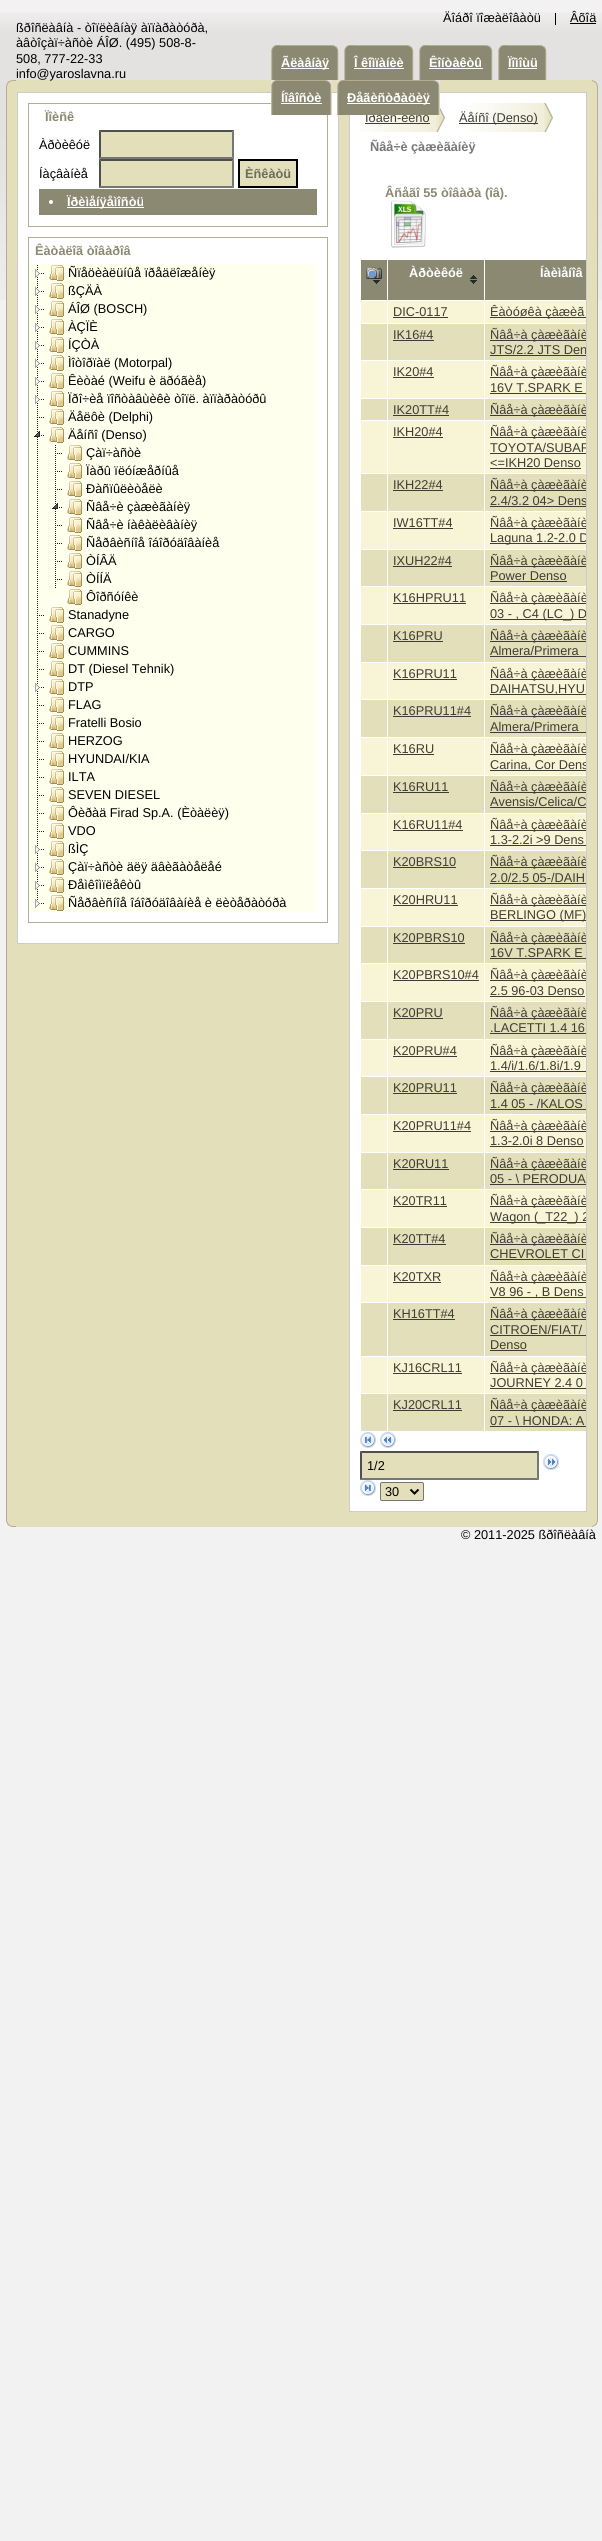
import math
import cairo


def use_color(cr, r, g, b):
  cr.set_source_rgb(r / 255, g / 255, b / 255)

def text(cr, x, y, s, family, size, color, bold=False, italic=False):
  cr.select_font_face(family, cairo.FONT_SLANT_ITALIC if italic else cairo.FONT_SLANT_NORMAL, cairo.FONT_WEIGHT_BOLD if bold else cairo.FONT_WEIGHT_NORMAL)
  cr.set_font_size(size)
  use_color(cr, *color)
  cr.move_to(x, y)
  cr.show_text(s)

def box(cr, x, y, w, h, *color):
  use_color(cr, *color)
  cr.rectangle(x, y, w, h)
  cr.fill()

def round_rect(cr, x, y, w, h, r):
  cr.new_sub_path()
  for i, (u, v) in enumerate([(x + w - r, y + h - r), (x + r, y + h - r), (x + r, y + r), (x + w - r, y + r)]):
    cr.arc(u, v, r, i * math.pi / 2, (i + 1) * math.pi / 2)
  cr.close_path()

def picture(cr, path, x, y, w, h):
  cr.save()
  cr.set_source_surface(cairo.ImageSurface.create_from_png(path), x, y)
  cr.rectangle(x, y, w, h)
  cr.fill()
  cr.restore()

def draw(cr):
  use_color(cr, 242, 242, 242)
  cr.paint()
  picture(cr, "img_01.png", 0, 12, 602, 288)
  box(cr, 555, 13, 1, 12, 0, 0, 0)
  box(cr, 570, 23, 26, 1, 0, 0, 0)
  picture(cr, "img_02.png", 281, 45, 58, 35)
  picture(cr, "img_03.png", 271, 45, 10, 35)
  box(cr, 281, 68, 48, 1, 255, 255, 255)
  picture(cr, "img_04.png", 354, 45, 60, 35)
  picture(cr, "img_03.png", 344, 45, 10, 35)
  box(cr, 354, 68, 50, 1, 255, 255, 255)
  picture(cr, "img_05.png", 429, 45, 64, 35)
  picture(cr, "img_03.png", 419, 45, 10, 35)
  box(cr, 429, 68, 54, 1, 255, 255, 255)
  picture(cr, "img_06.png", 508, 45, 39, 35)
  picture(cr, "img_03.png", 498, 45, 10, 35)
  box(cr, 508, 68, 29, 1, 255, 255, 255)
  box(cr, 16, 80, 576, 10, 227, 223, 186)
  box(cr, 7, 90, 590, 1427, 227, 223, 186)
  use_color(cr, 255, 255, 255)
  cr.rectangle(17.5, 92.5, 321, 851)
  cr.fill_preserve()
  use_color(cr, 204, 204, 204)
  cr.set_line_width(1)
  cr.stroke()
  cr.rectangle(28.5, 103.5, 299, 123)
  use_color(cr, 177, 174, 145)
  cr.stroke()
  picture(cr, "img_07.png", 281, 80, 51, 35)
  picture(cr, "img_03.png", 271, 80, 10, 35)
  box(cr, 281, 103, 41, 1, 255, 255, 255)
  picture(cr, "img_03.png", 337, 80, 10, 35)
  picture(cr, "img_09.png", 6, 80, 10, 10)
  picture(cr, "img_10.png", 592, 80, 6, 10)
  box(cr, 597, 90, 1, 1427, 177, 174, 145)
  box(cr, 6, 90, 1, 1427, 177, 174, 145)
  box(cr, 99, 130, 135, 58, 227, 223, 186)
  use_color(cr, 79, 79, 79)
  cr.new_path()
  cr.move_to(99, 130)
  cr.line_to(234, 130)
  cr.line_to(232, 132)
  cr.line_to(101, 132)
  cr.close_path()
  cr.fill()
  use_color(cr, 118, 118, 118)
  cr.new_path()
  cr.move_to(234, 130)
  cr.line_to(234, 159)
  cr.line_to(232, 157)
  cr.line_to(232, 132)
  cr.close_path()
  cr.fill()
  cr.new_path()
  cr.move_to(234, 159)
  cr.line_to(99, 159)
  cr.line_to(101, 157)
  cr.line_to(232, 157)
  cr.close_path()
  cr.fill()
  use_color(cr, 79, 79, 79)
  cr.new_path()
  cr.move_to(99, 159)
  cr.line_to(99, 130)
  cr.line_to(101, 132)
  cr.line_to(101, 157)
  cr.close_path()
  cr.fill()
  cr.new_path()
  cr.move_to(99, 159)
  cr.line_to(234, 159)
  cr.line_to(232, 161)
  cr.line_to(101, 161)
  cr.close_path()
  cr.fill()
  use_color(cr, 118, 118, 118)
  cr.new_path()
  cr.move_to(234, 159)
  cr.line_to(234, 188)
  cr.line_to(232, 186)
  cr.line_to(232, 161)
  cr.close_path()
  cr.fill()
  cr.new_path()
  cr.move_to(234, 188)
  cr.line_to(99, 188)
  cr.line_to(101, 186)
  cr.line_to(232, 186)
  cr.close_path()
  cr.fill()
  use_color(cr, 79, 79, 79)
  cr.new_path()
  cr.move_to(99, 188)
  cr.line_to(99, 159)
  cr.line_to(101, 161)
  cr.line_to(101, 186)
  cr.close_path()
  cr.fill()
  use_color(cr, 227, 223, 186)
  cr.rectangle(239, 160, 58, 27)
  cr.fill_preserve()
  use_color(cr, 0, 0, 0)
  cr.set_line_width(2)
  cr.stroke()
  box(cr, 39, 189, 278, 26, 139, 137, 114)
  use_color(cr, 255, 255, 255)
  cr.arc(51, 202, 2, 0, 2 * math.pi)
  cr.fill()
  box(cr, 67, 207, 77, 1, 255, 255, 255)
  cr.rectangle(28.5, 237.5, 299, 685)
  use_color(cr, 177, 174, 145)
  cr.set_line_width(1)
  cr.stroke()
  box(cr, 29, 264, 288, 648, 255, 255, 238)
  picture(cr, "img_11.png", 37, 265, 1, 17)
  picture(cr, "img_12.png", 35, 269, 9, 9)
  picture(cr, "img_13.png", 49, 265, 15, 16)
  picture(cr, "img_11.png", 37, 283, 1, 17)
  picture(cr, "img_12.png", 35, 287, 9, 9)
  picture(cr, "img_13.png", 49, 283, 15, 16)
  picture(cr, "img_11.png", 37, 301, 1, 17)
  picture(cr, "img_12.png", 35, 305, 9, 9)
  picture(cr, "img_13.png", 49, 301, 15, 16)
  picture(cr, "img_11.png", 37, 319, 1, 17)
  picture(cr, "img_12.png", 35, 323, 9, 9)
  picture(cr, "img_13.png", 49, 319, 15, 16)
  picture(cr, "img_11.png", 37, 337, 1, 17)
  picture(cr, "img_12.png", 35, 341, 9, 9)
  picture(cr, "img_13.png", 49, 337, 15, 16)
  picture(cr, "img_11.png", 37, 355, 1, 17)
  picture(cr, "img_12.png", 35, 359, 9, 9)
  picture(cr, "img_13.png", 49, 355, 15, 16)
  picture(cr, "img_11.png", 37, 373, 1, 17)
  picture(cr, "img_12.png", 35, 377, 9, 9)
  picture(cr, "img_13.png", 49, 373, 15, 16)
  picture(cr, "img_11.png", 37, 391, 1, 17)
  picture(cr, "img_12.png", 35, 395, 9, 9)
  picture(cr, "img_13.png", 49, 391, 15, 16)
  picture(cr, "img_11.png", 37, 409, 1, 17)
  picture(cr, "img_14.png", 39, 417, 5, 1)
  picture(cr, "img_13.png", 49, 409, 15, 16)
  picture(cr, "img_15.png", 37, 427, 1, 179)
  picture(cr, "img_16.png", 34, 431, 10, 6)
  picture(cr, "img_13.png", 49, 427, 15, 16)
  picture(cr, "img_11.png", 55, 445, 1, 17)
  picture(cr, "img_14.png", 57, 453, 5, 1)
  picture(cr, "img_13.png", 67, 445, 15, 16)
  picture(cr, "img_11.png", 55, 463, 1, 17)
  picture(cr, "img_14.png", 57, 471, 5, 1)
  picture(cr, "img_13.png", 67, 463, 15, 16)
  picture(cr, "img_11.png", 55, 481, 1, 17)
  picture(cr, "img_14.png", 57, 489, 5, 1)
  picture(cr, "img_13.png", 67, 481, 15, 16)
  picture(cr, "img_11.png", 55, 499, 1, 17)
  picture(cr, "img_16.png", 52, 503, 10, 6)
  picture(cr, "img_13.png", 67, 499, 15, 16)
  picture(cr, "img_11.png", 55, 517, 1, 17)
  picture(cr, "img_14.png", 57, 525, 5, 1)
  picture(cr, "img_13.png", 67, 517, 15, 16)
  picture(cr, "img_11.png", 55, 535, 1, 17)
  picture(cr, "img_14.png", 57, 543, 5, 1)
  picture(cr, "img_13.png", 67, 535, 15, 16)
  picture(cr, "img_11.png", 55, 553, 1, 17)
  picture(cr, "img_14.png", 57, 561, 5, 1)
  picture(cr, "img_13.png", 67, 553, 15, 16)
  picture(cr, "img_11.png", 55, 571, 1, 17)
  picture(cr, "img_14.png", 57, 579, 5, 1)
  picture(cr, "img_13.png", 67, 571, 15, 16)
  picture(cr, "img_13.png", 67, 589, 15, 16)
  picture(cr, "img_11.png", 37, 607, 1, 17)
  picture(cr, "img_14.png", 39, 615, 5, 1)
  picture(cr, "img_13.png", 49, 607, 15, 16)
  picture(cr, "img_11.png", 37, 625, 1, 17)
  picture(cr, "img_14.png", 39, 633, 5, 1)
  picture(cr, "img_13.png", 49, 625, 15, 16)
  picture(cr, "img_11.png", 37, 643, 1, 17)
  picture(cr, "img_14.png", 39, 651, 5, 1)
  picture(cr, "img_13.png", 49, 643, 15, 16)
  picture(cr, "img_11.png", 37, 661, 1, 17)
  picture(cr, "img_14.png", 39, 669, 5, 1)
  picture(cr, "img_13.png", 49, 661, 15, 16)
  picture(cr, "img_11.png", 37, 679, 1, 17)
  picture(cr, "img_12.png", 35, 683, 9, 9)
  picture(cr, "img_13.png", 49, 679, 15, 16)
  picture(cr, "img_11.png", 37, 697, 1, 17)
  picture(cr, "img_14.png", 39, 705, 5, 1)
  picture(cr, "img_13.png", 49, 697, 15, 16)
  picture(cr, "img_11.png", 37, 715, 1, 17)
  picture(cr, "img_14.png", 39, 723, 5, 1)
  picture(cr, "img_13.png", 49, 715, 15, 16)
  picture(cr, "img_11.png", 37, 733, 1, 17)
  picture(cr, "img_14.png", 39, 741, 5, 1)
  picture(cr, "img_13.png", 49, 733, 15, 16)
  picture(cr, "img_11.png", 37, 751, 1, 17)
  picture(cr, "img_14.png", 39, 759, 5, 1)
  picture(cr, "img_13.png", 49, 751, 15, 16)
  picture(cr, "img_11.png", 37, 769, 1, 17)
  picture(cr, "img_14.png", 39, 777, 5, 1)
  picture(cr, "img_13.png", 49, 769, 15, 16)
  picture(cr, "img_11.png", 37, 787, 1, 17)
  picture(cr, "img_14.png", 39, 795, 5, 1)
  picture(cr, "img_13.png", 49, 787, 15, 16)
  picture(cr, "img_11.png", 37, 805, 1, 17)
  picture(cr, "img_14.png", 39, 813, 5, 1)
  picture(cr, "img_13.png", 49, 805, 15, 16)
  picture(cr, "img_11.png", 37, 823, 1, 17)
  picture(cr, "img_14.png", 39, 831, 5, 1)
  picture(cr, "img_13.png", 49, 823, 15, 16)
  picture(cr, "img_11.png", 37, 841, 1, 17)
  picture(cr, "img_12.png", 35, 845, 9, 9)
  picture(cr, "img_13.png", 49, 841, 15, 16)
  picture(cr, "img_11.png", 37, 859, 1, 17)
  picture(cr, "img_12.png", 35, 863, 9, 9)
  picture(cr, "img_13.png", 49, 859, 15, 16)
  picture(cr, "img_11.png", 37, 877, 1, 17)
  picture(cr, "img_12.png", 35, 881, 9, 9)
  picture(cr, "img_13.png", 49, 877, 15, 16)
  picture(cr, "img_17.png", 35, 895, 9, 13)
  picture(cr, "img_13.png", 49, 895, 15, 16)
  use_color(cr, 255, 255, 255)
  cr.rectangle(349.5, 92.5, 237, 1419)
  cr.fill_preserve()
  use_color(cr, 204, 204, 204)
  cr.stroke()
  picture(cr, "img_18.png", 360, 103, 85, 29)
  box(cr, 365, 123, 65, 1, 62, 61, 51)
  picture(cr, "img_19.png", 469, 103, 84, 29)
  box(cr, 459, 123, 79, 1, 62, 61, 51)
  picture(cr, "img_20.png", 391, 200, 35, 48)
  box(cr, 361, 260, 26, 40, 139, 137, 114)
  picture(cr, "img_21.png", 373, 278, 7, 6)
  picture(cr, "img_22.png", 366, 267, 16, 12)
  box(cr, 388, 260, 96, 40, 139, 137, 114)
  picture(cr, "img_23.png", 470, 275, 7, 9)
  box(cr, 485, 260, 101, 40, 139, 137, 114)
  box(cr, 361, 301, 26, 22, 248, 245, 215)
  box(cr, 388, 301, 96, 22, 248, 245, 215)
  box(cr, 393, 317, 55, 1, 62, 61, 51)
  box(cr, 485, 301, 101, 22, 248, 245, 215)
  box(cr, 490, 317, 96, 1, 62, 61, 51)
  box(cr, 361, 324, 26, 36, 227, 223, 186)
  box(cr, 388, 324, 96, 36, 227, 223, 186)
  box(cr, 393, 340, 41, 1, 62, 61, 51)
  box(cr, 485, 324, 101, 36, 227, 223, 186)
  box(cr, 490, 340, 96, 1, 62, 61, 51)
  box(cr, 490, 355, 96, 1, 62, 61, 51)
  box(cr, 361, 361, 26, 37, 248, 245, 215)
  box(cr, 388, 361, 96, 37, 248, 245, 215)
  box(cr, 393, 377, 41, 1, 62, 61, 51)
  box(cr, 485, 361, 101, 37, 248, 245, 215)
  box(cr, 490, 377, 96, 1, 62, 61, 51)
  box(cr, 490, 393, 96, 1, 62, 61, 51)
  box(cr, 361, 399, 26, 21, 227, 223, 186)
  box(cr, 388, 399, 96, 21, 227, 223, 186)
  box(cr, 393, 415, 56, 1, 62, 61, 51)
  box(cr, 485, 399, 101, 21, 227, 223, 186)
  box(cr, 490, 415, 96, 1, 62, 61, 51)
  box(cr, 361, 421, 26, 52, 248, 245, 215)
  box(cr, 388, 421, 96, 52, 248, 245, 215)
  box(cr, 393, 437, 50, 1, 62, 61, 51)
  box(cr, 485, 421, 101, 52, 248, 245, 215)
  box(cr, 490, 437, 96, 1, 62, 61, 51)
  box(cr, 490, 453, 96, 1, 62, 61, 51)
  box(cr, 490, 468, 91, 1, 62, 61, 51)
  box(cr, 361, 474, 26, 37, 227, 223, 186)
  box(cr, 388, 474, 96, 37, 227, 223, 186)
  box(cr, 393, 490, 50, 1, 62, 61, 51)
  box(cr, 485, 474, 101, 37, 227, 223, 186)
  box(cr, 490, 490, 96, 1, 62, 61, 51)
  box(cr, 490, 506, 96, 1, 62, 61, 51)
  box(cr, 361, 512, 26, 37, 248, 245, 215)
  box(cr, 388, 512, 96, 37, 248, 245, 215)
  box(cr, 393, 528, 60, 1, 62, 61, 51)
  box(cr, 485, 512, 101, 37, 248, 245, 215)
  box(cr, 490, 528, 96, 1, 62, 61, 51)
  box(cr, 490, 543, 96, 1, 62, 61, 51)
  box(cr, 361, 550, 26, 36, 227, 223, 186)
  box(cr, 388, 550, 96, 36, 227, 223, 186)
  box(cr, 393, 566, 59, 1, 62, 61, 51)
  box(cr, 485, 550, 101, 36, 227, 223, 186)
  box(cr, 490, 566, 96, 1, 62, 61, 51)
  box(cr, 490, 581, 77, 1, 62, 61, 51)
  box(cr, 361, 587, 26, 37, 248, 245, 215)
  box(cr, 388, 587, 96, 37, 248, 245, 215)
  box(cr, 393, 603, 73, 1, 62, 61, 51)
  box(cr, 485, 587, 101, 37, 248, 245, 215)
  box(cr, 490, 603, 96, 1, 62, 61, 51)
  box(cr, 490, 619, 96, 1, 62, 61, 51)
  box(cr, 361, 625, 26, 37, 227, 223, 186)
  box(cr, 388, 625, 96, 37, 227, 223, 186)
  box(cr, 393, 641, 50, 1, 62, 61, 51)
  box(cr, 485, 625, 101, 37, 227, 223, 186)
  box(cr, 490, 641, 96, 1, 62, 61, 51)
  box(cr, 490, 656, 96, 1, 62, 61, 51)
  box(cr, 361, 663, 26, 36, 248, 245, 215)
  box(cr, 388, 663, 96, 36, 248, 245, 215)
  box(cr, 393, 679, 64, 1, 62, 61, 51)
  box(cr, 485, 663, 101, 36, 248, 245, 215)
  box(cr, 490, 679, 96, 1, 62, 61, 51)
  box(cr, 490, 694, 96, 1, 62, 61, 51)
  box(cr, 361, 700, 26, 37, 227, 223, 186)
  box(cr, 388, 700, 96, 37, 227, 223, 186)
  box(cr, 393, 716, 78, 1, 62, 61, 51)
  box(cr, 485, 700, 101, 37, 227, 223, 186)
  box(cr, 490, 716, 96, 1, 62, 61, 51)
  box(cr, 490, 732, 96, 1, 62, 61, 51)
  box(cr, 361, 738, 26, 37, 248, 245, 215)
  box(cr, 388, 738, 96, 37, 248, 245, 215)
  box(cr, 393, 754, 41, 1, 62, 61, 51)
  box(cr, 485, 738, 101, 37, 248, 245, 215)
  box(cr, 490, 754, 96, 1, 62, 61, 51)
  box(cr, 490, 770, 96, 1, 62, 61, 51)
  box(cr, 361, 776, 26, 37, 227, 223, 186)
  box(cr, 388, 776, 96, 37, 227, 223, 186)
  box(cr, 393, 792, 56, 1, 62, 61, 51)
  box(cr, 485, 776, 101, 37, 227, 223, 186)
  box(cr, 490, 792, 96, 1, 62, 61, 51)
  box(cr, 490, 807, 96, 1, 62, 61, 51)
  box(cr, 361, 814, 26, 36, 248, 245, 215)
  box(cr, 388, 814, 96, 36, 248, 245, 215)
  box(cr, 393, 830, 70, 1, 62, 61, 51)
  box(cr, 485, 814, 101, 36, 248, 245, 215)
  box(cr, 490, 830, 96, 1, 62, 61, 51)
  box(cr, 490, 845, 96, 1, 62, 61, 51)
  box(cr, 361, 851, 26, 37, 227, 223, 186)
  box(cr, 388, 851, 96, 37, 227, 223, 186)
  box(cr, 393, 867, 63, 1, 62, 61, 51)
  box(cr, 485, 851, 101, 37, 227, 223, 186)
  box(cr, 490, 867, 96, 1, 62, 61, 51)
  box(cr, 490, 883, 96, 1, 62, 61, 51)
  box(cr, 361, 889, 26, 37, 248, 245, 215)
  box(cr, 388, 889, 96, 37, 248, 245, 215)
  box(cr, 393, 905, 65, 1, 62, 61, 51)
  box(cr, 485, 889, 101, 37, 248, 245, 215)
  box(cr, 490, 905, 96, 1, 62, 61, 51)
  box(cr, 490, 920, 96, 1, 62, 61, 51)
  box(cr, 361, 927, 26, 36, 227, 223, 186)
  box(cr, 388, 927, 96, 36, 227, 223, 186)
  box(cr, 393, 943, 72, 1, 62, 61, 51)
  box(cr, 485, 927, 101, 36, 227, 223, 186)
  box(cr, 490, 943, 96, 1, 62, 61, 51)
  box(cr, 490, 958, 96, 1, 62, 61, 51)
  box(cr, 361, 964, 26, 37, 248, 245, 215)
  box(cr, 388, 964, 96, 37, 248, 245, 215)
  box(cr, 393, 980, 86, 1, 62, 61, 51)
  box(cr, 485, 964, 101, 37, 248, 245, 215)
  box(cr, 490, 980, 96, 1, 62, 61, 51)
  box(cr, 490, 996, 95, 1, 62, 61, 51)
  box(cr, 361, 1002, 26, 37, 227, 223, 186)
  box(cr, 388, 1002, 96, 37, 227, 223, 186)
  box(cr, 393, 1018, 50, 1, 62, 61, 51)
  box(cr, 485, 1002, 101, 37, 227, 223, 186)
  box(cr, 490, 1018, 96, 1, 62, 61, 51)
  box(cr, 490, 1033, 96, 1, 62, 61, 51)
  box(cr, 361, 1040, 26, 36, 248, 245, 215)
  box(cr, 388, 1040, 96, 36, 248, 245, 215)
  box(cr, 393, 1056, 64, 1, 62, 61, 51)
  box(cr, 485, 1040, 101, 36, 248, 245, 215)
  box(cr, 490, 1056, 96, 1, 62, 61, 51)
  box(cr, 490, 1071, 96, 1, 62, 61, 51)
  box(cr, 361, 1077, 26, 37, 227, 223, 186)
  box(cr, 388, 1077, 96, 37, 227, 223, 186)
  box(cr, 393, 1093, 64, 1, 62, 61, 51)
  box(cr, 485, 1077, 101, 37, 227, 223, 186)
  box(cr, 490, 1093, 96, 1, 62, 61, 51)
  box(cr, 490, 1109, 96, 1, 62, 61, 51)
  box(cr, 361, 1115, 26, 37, 248, 245, 215)
  box(cr, 388, 1115, 96, 37, 248, 245, 215)
  box(cr, 393, 1131, 78, 1, 62, 61, 51)
  box(cr, 485, 1115, 101, 37, 248, 245, 215)
  box(cr, 490, 1131, 96, 1, 62, 61, 51)
  box(cr, 490, 1146, 94, 1, 62, 61, 51)
  box(cr, 361, 1153, 26, 36, 227, 223, 186)
  box(cr, 388, 1153, 96, 36, 227, 223, 186)
  box(cr, 393, 1169, 56, 1, 62, 61, 51)
  box(cr, 485, 1153, 101, 36, 227, 223, 186)
  box(cr, 490, 1169, 96, 1, 62, 61, 51)
  box(cr, 490, 1184, 96, 1, 62, 61, 51)
  box(cr, 361, 1190, 26, 37, 248, 245, 215)
  box(cr, 388, 1190, 96, 37, 248, 245, 215)
  box(cr, 393, 1206, 54, 1, 62, 61, 51)
  box(cr, 485, 1190, 101, 37, 248, 245, 215)
  box(cr, 490, 1206, 96, 1, 62, 61, 51)
  box(cr, 490, 1222, 96, 1, 62, 61, 51)
  box(cr, 361, 1228, 26, 37, 227, 223, 186)
  box(cr, 388, 1228, 96, 37, 227, 223, 186)
  box(cr, 393, 1244, 53, 1, 62, 61, 51)
  box(cr, 485, 1228, 101, 37, 227, 223, 186)
  box(cr, 490, 1244, 96, 1, 62, 61, 51)
  box(cr, 490, 1259, 96, 1, 62, 61, 51)
  box(cr, 361, 1266, 26, 36, 248, 245, 215)
  box(cr, 388, 1266, 96, 36, 248, 245, 215)
  box(cr, 393, 1282, 48, 1, 62, 61, 51)
  box(cr, 485, 1266, 101, 36, 248, 245, 215)
  box(cr, 490, 1282, 96, 1, 62, 61, 51)
  box(cr, 490, 1297, 96, 1, 62, 61, 51)
  box(cr, 361, 1303, 26, 53, 227, 223, 186)
  box(cr, 388, 1303, 96, 53, 227, 223, 186)
  box(cr, 393, 1319, 62, 1, 62, 61, 51)
  box(cr, 485, 1303, 101, 53, 227, 223, 186)
  box(cr, 490, 1319, 96, 1, 62, 61, 51)
  box(cr, 490, 1335, 96, 1, 62, 61, 51)
  box(cr, 490, 1350, 37, 1, 62, 61, 51)
  box(cr, 361, 1357, 26, 36, 248, 245, 215)
  box(cr, 388, 1357, 96, 36, 248, 245, 215)
  box(cr, 393, 1373, 69, 1, 62, 61, 51)
  box(cr, 485, 1357, 101, 36, 248, 245, 215)
  box(cr, 490, 1373, 96, 1, 62, 61, 51)
  box(cr, 490, 1388, 96, 1, 62, 61, 51)
  box(cr, 361, 1394, 26, 37, 227, 223, 186)
  box(cr, 388, 1394, 96, 37, 227, 223, 186)
  box(cr, 393, 1410, 69, 1, 62, 61, 51)
  box(cr, 485, 1394, 101, 37, 227, 223, 186)
  box(cr, 490, 1410, 96, 1, 62, 61, 51)
  box(cr, 490, 1426, 96, 1, 62, 61, 51)
  picture(cr, "img_24.png", 360, 1432, 16, 16)
  picture(cr, "img_25.png", 380, 1432, 16, 16)
  box(cr, 360, 1451, 179, 29, 227, 223, 186)
  use_color(cr, 79, 79, 79)
  cr.new_path()
  cr.move_to(360, 1451)
  cr.line_to(539, 1451)
  cr.line_to(537, 1453)
  cr.line_to(362, 1453)
  cr.close_path()
  cr.fill()
  use_color(cr, 118, 118, 118)
  cr.new_path()
  cr.move_to(539, 1451)
  cr.line_to(539, 1480)
  cr.line_to(537, 1478)
  cr.line_to(537, 1453)
  cr.close_path()
  cr.fill()
  cr.new_path()
  cr.move_to(539, 1480)
  cr.line_to(360, 1480)
  cr.line_to(362, 1478)
  cr.line_to(537, 1478)
  cr.close_path()
  cr.fill()
  use_color(cr, 79, 79, 79)
  cr.new_path()
  cr.move_to(360, 1480)
  cr.line_to(360, 1451)
  cr.line_to(362, 1453)
  cr.line_to(362, 1478)
  cr.close_path()
  cr.fill()
  picture(cr, "img_26.png", 543, 1454, 16, 16)
  picture(cr, "img_27.png", 360, 1480, 16, 16)
  use_color(cr, 227, 223, 186)
  round_rect(cr, 380.5, 1482.5, 43, 18, 1.5)
  cr.fill_preserve()
  use_color(cr, 118, 118, 118)
  cr.stroke()
  cr.new_path()
  cr.move_to(410.5, 1489.5)
  cr.line_to(414.5, 1493.5)
  cr.line_to(418.5, 1489.5)
  use_color(cr, 0, 0, 0)
  cr.set_line_width(2)
  cr.stroke()
  box(cr, 16, 1517, 576, 10, 227, 223, 186)
  picture(cr, "img_28.png", 6, 1517, 10, 10)
  picture(cr, "img_29.png", 592, 1517, 6, 10)
  text(cr, 443, 22, "Äîáðî ïîæàëîâàòü", "Liberation Sans", 12.75, (0, 0, 0))
  text(cr, 570, 22, "Âõîä", "Liberation Sans", 12.75, (0, 0, 0))
  text(cr, 16, 32, "ßðîñëàâíà - òîïëèâíàÿ àïïàðàòóðà,", "Liberation Sans", 12.75, (0, 0, 0))
  text(cr, 16, 47, "àâòîçàï÷àñòè ÁÎØ. (495) 508-8-", "Liberation Sans", 12.75, (0, 0, 0))
  text(cr, 16, 63, "508, 777-22-33", "Liberation Sans", 12.75, (0, 0, 0))
  text(cr, 16, 78, "info@yaroslavna.ru", "Liberation Sans", 12.75, (0, 0, 0))
  text(cr, 281, 67, "Ãëàâíàÿ", "Liberation Sans", 12.75, (255, 255, 255), bold=True)
  text(cr, 354, 67, "Î êîìïàíèè", "Liberation Sans", 12.75, (255, 255, 255), bold=True)
  text(cr, 429, 67, "Êîíòàêòû", "Liberation Sans", 12.75, (255, 255, 255), bold=True)
  text(cr, 508, 67, "Ïîìîùü", "Liberation Sans", 12.75, (255, 255, 255), bold=True)
  text(cr, 281, 102, "Íîâîñòè", "Liberation Sans", 12.75, (255, 255, 255), bold=True)
  text(cr, 45, 121, "Ïîèñê", "Liberation Sans", 12.75, (139, 137, 114), bold=True)
  text(cr, 39, 149, "Àðòèêóë", "Liberation Sans", 12.75, (0, 0, 0))
  text(cr, 39, 178, "Íàçâàíèå", "Liberation Sans", 12.75, (0, 0, 0))
  text(cr, 245, 178, "Èñêàòü", "Liberation Sans", 12.75, (109, 108, 91), bold=True)
  text(cr, 67, 206, "Ïðèìåíÿåìîñòü", "Liberation Sans", 12.75, (255, 255, 255), bold=True)
  text(cr, 35, 255, "Êàòàëîã òîâàðîâ", "Liberation Sans", 12.75, (139, 137, 114), bold=True)
  text(cr, 68, 277, "Ñïåöèàëüíûå ïðåäëîæåíèÿ", "Liberation Sans", 12.75, (0, 0, 0))
  text(cr, 68, 295, "ßÇÄÀ", "Liberation Sans", 12.75, (0, 0, 0))
  text(cr, 68, 313, "ÁÎØ (BOSCH)", "Liberation Sans", 12.75, (0, 0, 0))
  text(cr, 68, 331, "ÀÇÏÈ", "Liberation Sans", 12.75, (0, 0, 0))
  text(cr, 68, 349, "ÍÇÒÀ", "Liberation Sans", 12.75, (0, 0, 0))
  text(cr, 68, 367, "Ìîòîðïàë (Motorpal)", "Liberation Sans", 12.75, (0, 0, 0))
  text(cr, 68, 385, "Êèòàé (Weifu è äðóãèå)", "Liberation Sans", 12.75, (0, 0, 0))
  text(cr, 68, 403, "Ïðî÷èå ïîñòàâùèêè òîïë. àïïàðàòóðû", "Liberation Sans", 12.75, (0, 0, 0))
  text(cr, 68, 421, "Äåëôè (Delphi)", "Liberation Sans", 12.75, (0, 0, 0))
  text(cr, 68, 439, "Äåíñî (Denso)", "Liberation Sans", 12.75, (0, 0, 0))
  text(cr, 86, 457, "Çàï÷àñòè", "Liberation Sans", 12.75, (0, 0, 0))
  text(cr, 86, 475, "Ïàðû ïëóíæåðíûå", "Liberation Sans", 12.75, (0, 0, 0))
  text(cr, 86, 493, "Ðàñïûëèòåëè", "Liberation Sans", 12.75, (0, 0, 0))
  text(cr, 86, 511, "Ñâå÷è çàæèãàíèÿ", "Liberation Sans", 12.75, (0, 0, 0))
  text(cr, 86, 529, "Ñâå÷è íàêàëèâàíèÿ", "Liberation Sans", 12.75, (0, 0, 0))
  text(cr, 86, 547, "Ñåðâèñíîå îáîðóäîâàíèå", "Liberation Sans", 12.75, (0, 0, 0))
  text(cr, 86, 565, "ÒÍÂÄ", "Liberation Sans", 12.75, (0, 0, 0))
  text(cr, 86, 583, "ÒÍÍÄ", "Liberation Sans", 12.75, (0, 0, 0))
  text(cr, 86, 601, "Ôîðñóíêè", "Liberation Sans", 12.75, (0, 0, 0))
  text(cr, 68, 619, "Stanadyne", "Liberation Sans", 12.75, (0, 0, 0))
  text(cr, 68, 637, "CARGO", "Liberation Sans", 12.75, (0, 0, 0))
  text(cr, 68, 655, "CUMMINS", "Liberation Sans", 12.75, (0, 0, 0))
  text(cr, 68, 673, "DT (Diesel Tehnik)", "Liberation Sans", 12.75, (0, 0, 0))
  text(cr, 68, 691, "DTP", "Liberation Sans", 12.75, (0, 0, 0))
  text(cr, 68, 709, "FLAG", "Liberation Sans", 12.75, (0, 0, 0))
  text(cr, 68, 727, "Fratelli Bosio", "Liberation Sans", 12.75, (0, 0, 0))
  text(cr, 68, 745, "HERZOG", "Liberation Sans", 12.75, (0, 0, 0))
  text(cr, 68, 763, "HYUNDAI/KIA", "Liberation Sans", 12.75, (0, 0, 0))
  text(cr, 68, 781, "ILTA", "Liberation Sans", 12.75, (0, 0, 0))
  text(cr, 68, 799, "SEVEN DIESEL", "Liberation Sans", 12.75, (0, 0, 0))
  text(cr, 68, 817, "Ôèðàä Firad Sp.A. (Èòàëèÿ)", "Liberation Sans", 12.75, (0, 0, 0))
  text(cr, 68, 835, "VDO", "Liberation Sans", 12.75, (0, 0, 0))
  text(cr, 68, 853, "ßÌÇ", "Liberation Sans", 12.75, (0, 0, 0))
  text(cr, 68, 871, "Çàï÷àñòè äëÿ äâèãàòåëåé", "Liberation Sans", 12.75, (0, 0, 0))
  text(cr, 68, 889, "Ðåìêîìïëåêòû", "Liberation Sans", 12.75, (0, 0, 0))
  text(cr, 68, 907, "Ñåðâèñíîå îáîðóäîâàíèå è ëèòåðàòóðà", "Liberation Sans", 12.75, (0, 0, 0))
  text(cr, 365, 122, "Ïðàéñ-ëèñò", "Liberation Sans", 12.75, (62, 61, 51))
  picture(cr, "img_08.png", 347, 80, 93, 35)
  box(cr, 347, 103, 83, 1, 255, 255, 255)
  text(cr, 347, 102, "Ðåãèñòðàöèÿ", "Liberation Sans", 12.75, (255, 255, 255), bold=True)
  text(cr, 459, 122, "Äåíñî (Denso)", "Liberation Sans", 12.75, (62, 61, 51))
  text(cr, 370, 151, "Ñâå÷è çàæèãàíèÿ", "Liberation Sans", 12.75, (119, 119, 119), bold=True)
  text(cr, 385, 197, "Âñåãî 55 òîâàðà (îâ).", "Liberation Sans", 12.75, (139, 137, 114), bold=True)
  text(cr, 409, 277, "Àðòèêóë", "Liberation Sans", 12.75, (255, 255, 255), bold=True)
  text(cr, 540, 277, "Íàèìåíîâ", "Liberation Sans", 12.75, (255, 255, 255), bold=True)
  text(cr, 393, 316, "DIC-0117", "Liberation Sans", 12.75, (62, 61, 51))
  text(cr, 490, 316, "Êàòóøêà çàæèã", "Liberation Sans", 12.75, (62, 61, 51))
  text(cr, 393, 339, "IK16#4", "Liberation Sans", 12.75, (62, 61, 51))
  cr.save()
  cr.rectangle(350, 93, 236, 1418)
  cr.clip()
  text(cr, 490, 339, "Ñâå÷à çàæèãàíè", "Liberation Sans", 12.75, (62, 61, 51))
  text(cr, 490, 354, "JTS/2.2 JTS Den", "Liberation Sans", 12.75, (62, 61, 51))
  cr.restore()
  text(cr, 393, 376, "IK20#4", "Liberation Sans", 12.75, (62, 61, 51))
  cr.save()
  cr.rectangle(350, 93, 236, 1418)
  cr.clip()
  text(cr, 490, 376, "Ñâå÷à çàæèãàíè", "Liberation Sans", 12.75, (62, 61, 51))
  cr.restore()
  text(cr, 490, 392, "16V T.SPARK E", "Liberation Sans", 12.75, (62, 61, 51))
  text(cr, 393, 414, "IK20TT#4", "Liberation Sans", 12.75, (62, 61, 51))
  cr.save()
  cr.rectangle(350, 93, 236, 1418)
  cr.clip()
  text(cr, 490, 414, "Ñâå÷à çàæèãàíè", "Liberation Sans", 12.75, (62, 61, 51))
  cr.restore()
  text(cr, 393, 436, "IKH20#4", "Liberation Sans", 12.75, (62, 61, 51))
  cr.save()
  cr.rectangle(350, 93, 236, 1418)
  cr.clip()
  text(cr, 490, 436, "Ñâå÷à çàæèãàíè", "Liberation Sans", 12.75, (62, 61, 51))
  text(cr, 490, 452, "TOYOTA/SUBAR", "Liberation Sans", 12.75, (62, 61, 51))
  cr.restore()
  text(cr, 490, 467, "<=IKH20 Denso", "Liberation Sans", 12.75, (62, 61, 51))
  text(cr, 393, 489, "IKH22#4", "Liberation Sans", 12.75, (62, 61, 51))
  cr.save()
  cr.rectangle(350, 93, 236, 1418)
  cr.clip()
  text(cr, 490, 489, "Ñâå÷à çàæèãàíè", "Liberation Sans", 12.75, (62, 61, 51))
  text(cr, 490, 505, "2.4/3.2 04> Dens", "Liberation Sans", 12.75, (62, 61, 51))
  cr.restore()
  text(cr, 393, 527, "IW16TT#4", "Liberation Sans", 12.75, (62, 61, 51))
  cr.save()
  cr.rectangle(350, 93, 236, 1418)
  cr.clip()
  text(cr, 490, 527, "Ñâå÷à çàæèãàíè", "Liberation Sans", 12.75, (62, 61, 51))
  text(cr, 490, 542, "Laguna 1.2-2.0 D", "Liberation Sans", 12.75, (62, 61, 51))
  cr.restore()
  text(cr, 393, 565, "IXUH22#4", "Liberation Sans", 12.75, (62, 61, 51))
  cr.save()
  cr.rectangle(350, 93, 236, 1418)
  cr.clip()
  text(cr, 490, 565, "Ñâå÷à çàæèãàíè", "Liberation Sans", 12.75, (62, 61, 51))
  cr.restore()
  text(cr, 490, 580, "Power Denso", "Liberation Sans", 12.75, (62, 61, 51))
  text(cr, 393, 602, "K16HPRU11", "Liberation Sans", 12.75, (62, 61, 51))
  cr.save()
  cr.rectangle(350, 93, 236, 1418)
  cr.clip()
  text(cr, 490, 602, "Ñâå÷à çàæèãàíè", "Liberation Sans", 12.75, (62, 61, 51))
  text(cr, 490, 618, "03 - , C4 (LC_) D", "Liberation Sans", 12.75, (62, 61, 51))
  cr.restore()
  text(cr, 393, 640, "K16PRU", "Liberation Sans", 12.75, (62, 61, 51))
  cr.save()
  cr.rectangle(350, 93, 236, 1418)
  cr.clip()
  text(cr, 490, 640, "Ñâå÷à çàæèãàíè", "Liberation Sans", 12.75, (62, 61, 51))
  cr.restore()
  text(cr, 490, 655, "Almera/Primera", "Liberation Sans", 12.75, (62, 61, 51))
  text(cr, 393, 678, "K16PRU11", "Liberation Sans", 12.75, (62, 61, 51))
  cr.save()
  cr.rectangle(350, 93, 236, 1418)
  cr.clip()
  text(cr, 490, 678, "Ñâå÷à çàæèãàíè", "Liberation Sans", 12.75, (62, 61, 51))
  cr.restore()
  text(cr, 490, 693, "DAIHATSU,HYU", "Liberation Sans", 12.75, (62, 61, 51))
  text(cr, 393, 715, "K16PRU11#4", "Liberation Sans", 12.75, (62, 61, 51))
  cr.save()
  cr.rectangle(350, 93, 236, 1418)
  cr.clip()
  text(cr, 490, 715, "Ñâå÷à çàæèãàíè", "Liberation Sans", 12.75, (62, 61, 51))
  cr.restore()
  text(cr, 490, 731, "Almera/Primera", "Liberation Sans", 12.75, (62, 61, 51))
  text(cr, 393, 753, "K16RU", "Liberation Sans", 12.75, (62, 61, 51))
  cr.save()
  cr.rectangle(350, 93, 236, 1418)
  cr.clip()
  text(cr, 490, 753, "Ñâå÷à çàæèãàíè", "Liberation Sans", 12.75, (62, 61, 51))
  text(cr, 490, 769, "Carina, Cor Dens", "Liberation Sans", 12.75, (62, 61, 51))
  cr.restore()
  text(cr, 393, 791, "K16RU11", "Liberation Sans", 12.75, (62, 61, 51))
  cr.save()
  cr.rectangle(350, 93, 236, 1418)
  cr.clip()
  text(cr, 490, 791, "Ñâå÷à çàæèãàíè", "Liberation Sans", 12.75, (62, 61, 51))
  cr.restore()
  text(cr, 490, 806, "Avensis/Celica/C", "Liberation Sans", 12.75, (62, 61, 51))
  text(cr, 393, 829, "K16RU11#4", "Liberation Sans", 12.75, (62, 61, 51))
  cr.save()
  cr.rectangle(350, 93, 236, 1418)
  cr.clip()
  text(cr, 490, 829, "Ñâå÷à çàæèãàíè", "Liberation Sans", 12.75, (62, 61, 51))
  cr.restore()
  text(cr, 490, 844, "1.3-2.2i >9 Dens", "Liberation Sans", 12.75, (62, 61, 51))
  text(cr, 393, 866, "K20BRS10", "Liberation Sans", 12.75, (62, 61, 51))
  cr.save()
  cr.rectangle(350, 93, 236, 1418)
  cr.clip()
  text(cr, 490, 866, "Ñâå÷à çàæèãàíè", "Liberation Sans", 12.75, (62, 61, 51))
  cr.restore()
  text(cr, 490, 882, "2.0/2.5 05-/DAIH", "Liberation Sans", 12.75, (62, 61, 51))
  text(cr, 393, 904, "K20HRU11", "Liberation Sans", 12.75, (62, 61, 51))
  cr.save()
  cr.rectangle(350, 93, 236, 1418)
  cr.clip()
  text(cr, 490, 904, "Ñâå÷à çàæèãàíè", "Liberation Sans", 12.75, (62, 61, 51))
  cr.restore()
  text(cr, 490, 919, "BERLINGO (MF)", "Liberation Sans", 12.75, (62, 61, 51))
  text(cr, 393, 942, "K20PBRS10", "Liberation Sans", 12.75, (62, 61, 51))
  cr.save()
  cr.rectangle(350, 93, 236, 1418)
  cr.clip()
  text(cr, 490, 942, "Ñâå÷à çàæèãàíè", "Liberation Sans", 12.75, (62, 61, 51))
  cr.restore()
  text(cr, 490, 957, "16V T.SPARK E", "Liberation Sans", 12.75, (62, 61, 51))
  text(cr, 393, 979, "K20PBRS10#4", "Liberation Sans", 12.75, (62, 61, 51))
  cr.save()
  cr.rectangle(350, 93, 236, 1418)
  cr.clip()
  text(cr, 490, 979, "Ñâå÷à çàæèãàíè", "Liberation Sans", 12.75, (62, 61, 51))
  cr.restore()
  text(cr, 490, 995, "2.5 96-03 Denso", "Liberation Sans", 12.75, (62, 61, 51))
  text(cr, 393, 1017, "K20PRU", "Liberation Sans", 12.75, (62, 61, 51))
  cr.save()
  cr.rectangle(350, 93, 236, 1418)
  cr.clip()
  text(cr, 490, 1017, "Ñâå÷à çàæèãàíè", "Liberation Sans", 12.75, (62, 61, 51))
  cr.restore()
  text(cr, 490, 1032, ".LACETTI 1.4 16", "Liberation Sans", 12.75, (62, 61, 51))
  text(cr, 393, 1055, "K20PRU#4", "Liberation Sans", 12.75, (62, 61, 51))
  cr.save()
  cr.rectangle(350, 93, 236, 1418)
  cr.clip()
  text(cr, 490, 1055, "Ñâå÷à çàæèãàíè", "Liberation Sans", 12.75, (62, 61, 51))
  cr.restore()
  text(cr, 490, 1070, "1.4/i/1.6/1.8i/1.9", "Liberation Sans", 12.75, (62, 61, 51))
  text(cr, 393, 1092, "K20PRU11", "Liberation Sans", 12.75, (62, 61, 51))
  cr.save()
  cr.rectangle(350, 93, 236, 1418)
  cr.clip()
  text(cr, 490, 1092, "Ñâå÷à çàæèãàíè", "Liberation Sans", 12.75, (62, 61, 51))
  cr.restore()
  text(cr, 490, 1108, "1.4 05 - /KALOS", "Liberation Sans", 12.75, (62, 61, 51))
  text(cr, 393, 1130, "K20PRU11#4", "Liberation Sans", 12.75, (62, 61, 51))
  cr.save()
  cr.rectangle(350, 93, 236, 1418)
  cr.clip()
  text(cr, 490, 1130, "Ñâå÷à çàæèãàíè", "Liberation Sans", 12.75, (62, 61, 51))
  cr.restore()
  text(cr, 490, 1145, "1.3-2.0i 8 Denso", "Liberation Sans", 12.75, (62, 61, 51))
  text(cr, 393, 1168, "K20RU11", "Liberation Sans", 12.75, (62, 61, 51))
  cr.save()
  cr.rectangle(350, 93, 236, 1418)
  cr.clip()
  text(cr, 490, 1168, "Ñâå÷à çàæèãàíè", "Liberation Sans", 12.75, (62, 61, 51))
  cr.restore()
  text(cr, 490, 1183, "05 - \\ PERODUA", "Liberation Sans", 12.75, (62, 61, 51))
  text(cr, 393, 1205, "K20TR11", "Liberation Sans", 12.75, (62, 61, 51))
  cr.save()
  cr.rectangle(350, 93, 236, 1418)
  cr.clip()
  text(cr, 490, 1205, "Ñâå÷à çàæèãàíè", "Liberation Sans", 12.75, (62, 61, 51))
  text(cr, 490, 1221, "Wagon (_T22_) 2", "Liberation Sans", 12.75, (62, 61, 51))
  cr.restore()
  text(cr, 393, 1243, "K20TT#4", "Liberation Sans", 12.75, (62, 61, 51))
  cr.save()
  cr.rectangle(350, 93, 236, 1418)
  cr.clip()
  text(cr, 490, 1243, "Ñâå÷à çàæèãàíè", "Liberation Sans", 12.75, (62, 61, 51))
  cr.restore()
  text(cr, 490, 1258, "CHEVROLET CI", "Liberation Sans", 12.75, (62, 61, 51))
  text(cr, 393, 1281, "K20TXR", "Liberation Sans", 12.75, (62, 61, 51))
  cr.save()
  cr.rectangle(350, 93, 236, 1418)
  cr.clip()
  text(cr, 490, 1281, "Ñâå÷à çàæèãàíè", "Liberation Sans", 12.75, (62, 61, 51))
  cr.restore()
  text(cr, 490, 1296, "V8 96 - , B Dens", "Liberation Sans", 12.75, (62, 61, 51))
  text(cr, 393, 1318, "KH16TT#4", "Liberation Sans", 12.75, (62, 61, 51))
  cr.save()
  cr.rectangle(350, 93, 236, 1418)
  cr.clip()
  text(cr, 490, 1318, "Ñâå÷à çàæèãàíè", "Liberation Sans", 12.75, (62, 61, 51))
  cr.restore()
  text(cr, 490, 1334, "CITROEN/FIAT/", "Liberation Sans", 12.75, (62, 61, 51))
  text(cr, 490, 1349, "Denso", "Liberation Sans", 12.75, (62, 61, 51))
  text(cr, 393, 1372, "KJ16CRL11", "Liberation Sans", 12.75, (62, 61, 51))
  cr.save()
  cr.rectangle(350, 93, 236, 1418)
  cr.clip()
  text(cr, 490, 1372, "Ñâå÷à çàæèãàíè", "Liberation Sans", 12.75, (62, 61, 51))
  cr.restore()
  text(cr, 490, 1387, "JOURNEY 2.4 0", "Liberation Sans", 12.75, (62, 61, 51))
  text(cr, 393, 1409, "KJ20CRL11", "Liberation Sans", 12.75, (62, 61, 51))
  cr.save()
  cr.rectangle(350, 93, 236, 1418)
  cr.clip()
  text(cr, 490, 1409, "Ñâå÷à çàæèãàíè", "Liberation Sans", 12.75, (62, 61, 51))
  cr.restore()
  text(cr, 490, 1425, "07 - \\ HONDA: A", "Liberation Sans", 12.75, (62, 61, 51))
  text(cr, 367, 1470, "1/2", "Liberation Sans", 12.75, (0, 0, 0))
  text(cr, 385, 1496, "30", "Liberation Sans", 12.75, (0, 0, 0))
  text(cr, 461, 1539, "© 2011-2025 ßðîñëàâíà", "Liberation Sans", 12.75, (0, 0, 0))


surface = cairo.ImageSurface(cairo.FORMAT_RGB24, 602, 2541)
cr = cairo.Context(surface)
options = cairo.FontOptions()
options.set_hint_metrics(cairo.HINT_METRICS_OFF)
options.set_hint_style(cairo.HINT_STYLE_NONE)
cr.set_font_options(options)
cr.set_miter_limit(4)
draw(cr)
surface.write_to_png("out.png")
